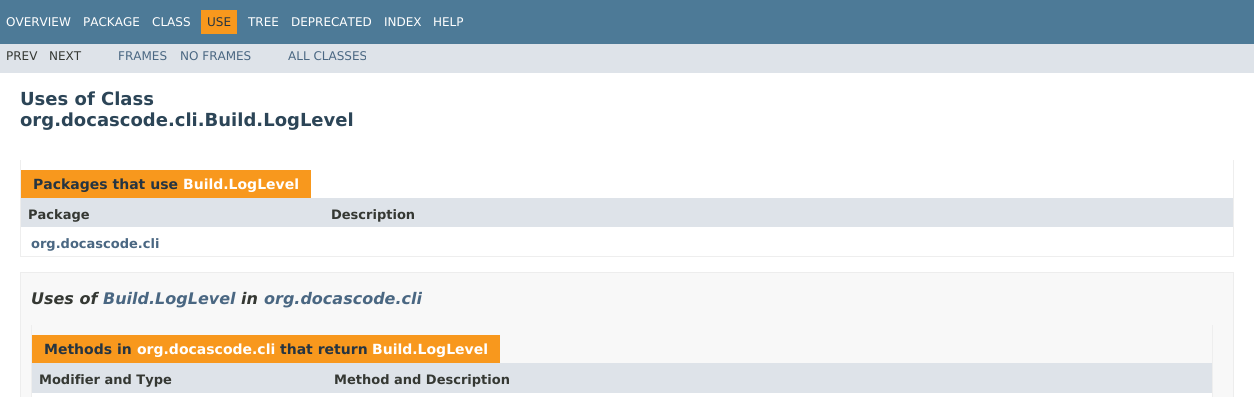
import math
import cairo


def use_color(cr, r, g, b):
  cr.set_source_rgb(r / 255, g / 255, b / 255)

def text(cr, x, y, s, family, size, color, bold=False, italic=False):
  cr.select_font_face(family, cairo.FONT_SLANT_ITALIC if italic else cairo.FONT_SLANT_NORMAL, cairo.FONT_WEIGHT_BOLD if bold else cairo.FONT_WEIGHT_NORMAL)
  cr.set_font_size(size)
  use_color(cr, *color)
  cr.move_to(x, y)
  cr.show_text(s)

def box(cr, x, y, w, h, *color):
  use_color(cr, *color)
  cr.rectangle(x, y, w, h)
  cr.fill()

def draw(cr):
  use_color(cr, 255, 255, 255)
  cr.paint()
  box(cr, 0, 0, 1254, 44, 77, 122, 151)
  box(cr, 201, 10, 36, 24, 248, 152, 29)
  box(cr, 0, 44, 1254, 29, 222, 227, 233)
  box(cr, 1233, 160, 1, 97, 238, 238, 238)
  box(cr, 20, 256, 1214, 1, 238, 238, 238)
  box(cr, 20, 160, 1, 97, 238, 238, 238)
  box(cr, 21, 170, 290, 28, 248, 152, 29)
  box(cr, 21, 198, 1212, 29, 222, 227, 233)
  use_color(cr, 248, 248, 248)
  cr.rectangle(20.5, 272.5, 1213, 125)
  cr.fill_preserve()
  use_color(cr, 237, 237, 237)
  cr.set_line_width(1)
  cr.stroke()
  box(cr, 1212, 325, 1, 72, 238, 238, 238)
  box(cr, 31, 325, 1, 72, 238, 238, 238)
  box(cr, 32, 335, 468, 28, 248, 152, 29)
  box(cr, 32, 363, 1180, 30, 222, 227, 233)
  box(cr, 32, 393, 1180, 4, 255, 255, 255)
  text(cr, 6, 26, "OVERVIEW", "DejaVu Sans", 12, (255, 255, 255))
  text(cr, 83, 26, "PACKAGE", "DejaVu Sans", 12, (255, 255, 255))
  text(cr, 152, 26, "CLASS", "DejaVu Sans", 12, (255, 255, 255))
  text(cr, 207, 26, "USE", "DejaVu Sans", 12, (37, 52, 65))
  text(cr, 248, 26, "TREE", "DejaVu Sans", 12, (255, 255, 255))
  text(cr, 291, 26, "DEPRECATED", "DejaVu Sans", 12, (255, 255, 255))
  text(cr, 384, 26, "INDEX", "DejaVu Sans", 12, (255, 255, 255))
  text(cr, 433, 26, "HELP", "DejaVu Sans", 12, (255, 255, 255))
  text(cr, 6, 60, "PREV", "DejaVu Sans", 12, (53, 56, 51))
  text(cr, 49, 60, "NEXT", "DejaVu Sans", 12, (53, 56, 51))
  text(cr, 118, 60, "FRAMES", "DejaVu Sans", 12, (74, 103, 130))
  text(cr, 180, 60, "NO FRAMES", "DejaVu Sans", 12, (74, 103, 130))
  text(cr, 288, 60, "ALL CLASSES", "DejaVu Sans", 12, (74, 103, 130))
  text(cr, 20, 105, "Uses of Class", "DejaVu Sans", 18, (44, 69, 87), bold=True)
  text(cr, 20, 126, "org.docascode.cli.Build.LogLevel", "DejaVu Sans", 18, (44, 69, 87), bold=True)
  text(cr, 33, 189, "Packages that use", "DejaVu Sans", 14, (37, 52, 65), bold=True)
  text(cr, 183, 189, "Build.LogLevel", "DejaVu Sans", 14, (255, 255, 255), bold=True)
  text(cr, 28, 219, "Package", "DejaVu Sans", 13, (53, 56, 51), bold=True)
  text(cr, 331, 219, "Description", "DejaVu Sans", 13, (53, 56, 51), bold=True)
  text(cr, 31, 248, "org.docascode.cli", "DejaVu Sans", 13, (74, 103, 130), bold=True)
  text(cr, 31, 304, "Uses of", "DejaVu Sans", 16, (53, 56, 51), bold=True, italic=True)
  text(cr, 103, 304, "Build.LogLevel", "DejaVu Sans", 16, (74, 103, 130), bold=True, italic=True)
  text(cr, 241, 304, "in", "DejaVu Sans", 16, (53, 56, 51), bold=True, italic=True)
  text(cr, 264, 304, "org.docascode.cli", "DejaVu Sans", 16, (74, 103, 130), bold=True, italic=True)
  text(cr, 44, 354, "Methods in", "DejaVu Sans", 14, (37, 52, 65), bold=True)
  text(cr, 137, 354, "org.docascode.cli", "DejaVu Sans", 14, (255, 255, 255), bold=True)
  text(cr, 280, 354, "that return", "DejaVu Sans", 14, (37, 52, 65), bold=True)
  text(cr, 372, 354, "Build.LogLevel", "DejaVu Sans", 14, (255, 255, 255), bold=True)
  text(cr, 39, 384, "Modifier and Type", "DejaVu Sans", 13, (53, 56, 51), bold=True)
  text(cr, 334, 384, "Method and Description", "DejaVu Sans", 13, (53, 56, 51), bold=True)


surface = cairo.ImageSurface(cairo.FORMAT_RGB24, 1254, 397)
cr = cairo.Context(surface)
options = cairo.FontOptions()
options.set_hint_metrics(cairo.HINT_METRICS_OFF)
options.set_hint_style(cairo.HINT_STYLE_NONE)
cr.set_font_options(options)
cr.set_miter_limit(4)
draw(cr)
surface.write_to_png("out.png")
